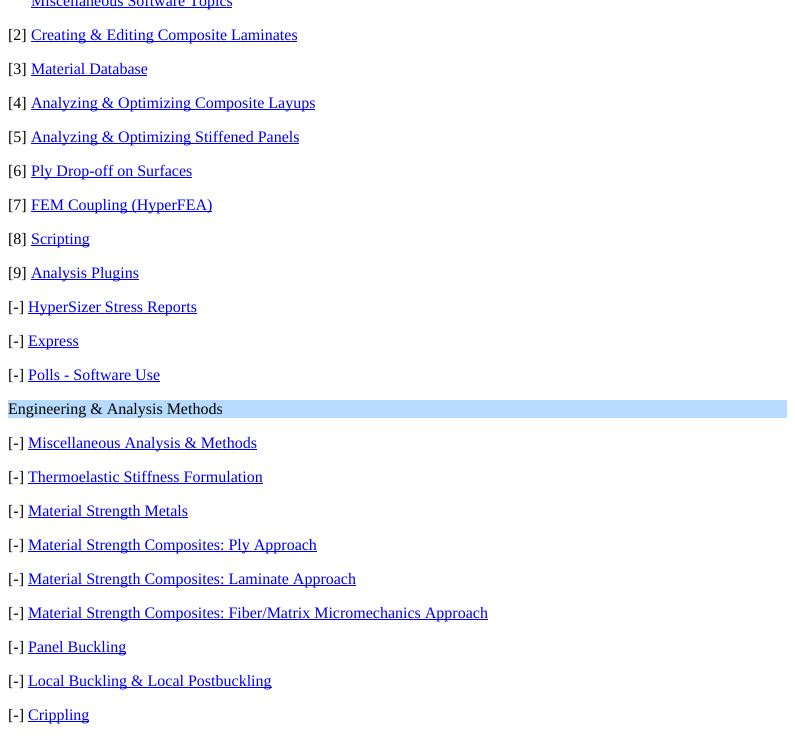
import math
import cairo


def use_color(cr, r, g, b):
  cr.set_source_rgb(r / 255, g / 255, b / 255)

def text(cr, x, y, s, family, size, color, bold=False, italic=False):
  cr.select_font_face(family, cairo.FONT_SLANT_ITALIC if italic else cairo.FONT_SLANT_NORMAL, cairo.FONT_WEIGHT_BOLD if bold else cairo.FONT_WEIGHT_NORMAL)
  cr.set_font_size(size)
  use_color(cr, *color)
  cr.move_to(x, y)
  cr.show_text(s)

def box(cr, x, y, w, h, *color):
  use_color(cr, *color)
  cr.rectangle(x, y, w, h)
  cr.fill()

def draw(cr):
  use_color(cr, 255, 255, 255)
  cr.paint()
  box(cr, 31, 7, 201, 1, 0, 0, 238)
  box(cr, 31, 41, 266, 1, 0, 0, 238)
  box(cr, 31, 75, 116, 1, 0, 0, 238)
  box(cr, 31, 109, 284, 1, 0, 0, 238)
  box(cr, 31, 143, 268, 1, 0, 0, 238)
  box(cr, 31, 177, 161, 1, 0, 0, 238)
  box(cr, 31, 211, 181, 1, 0, 0, 238)
  box(cr, 31, 245, 58, 1, 0, 0, 238)
  box(cr, 31, 279, 108, 1, 0, 0, 238)
  box(cr, 28, 313, 169, 1, 0, 0, 238)
  box(cr, 28, 347, 51, 1, 0, 0, 238)
  box(cr, 28, 381, 132, 1, 0, 0, 238)
  box(cr, 8, 400, 779, 18, 182, 219, 255)
  box(cr, 28, 449, 229, 1, 0, 0, 238)
  box(cr, 28, 483, 235, 1, 0, 0, 238)
  box(cr, 28, 517, 160, 1, 0, 0, 238)
  box(cr, 28, 551, 289, 1, 0, 0, 238)
  box(cr, 28, 585, 328, 1, 0, 0, 238)
  box(cr, 28, 619, 460, 1, 0, 0, 238)
  box(cr, 28, 653, 98, 1, 0, 0, 238)
  box(cr, 28, 687, 244, 1, 0, 0, 238)
  box(cr, 28, 721, 61, 1, 0, 0, 238)
  text(cr, 31, 6, "Miscellaneous Software Topics", "Liberation Serif", 16, (0, 0, 238))
  text(cr, 8, 40, "[2]", "Liberation Serif", 16, (0, 0, 0))
  text(cr, 31, 40, "Creating & Editing Composite Laminates", "Liberation Serif", 16, (0, 0, 238))
  text(cr, 8, 74, "[3]", "Liberation Serif", 16, (0, 0, 0))
  text(cr, 31, 74, "Material Database", "Liberation Serif", 16, (0, 0, 238))
  text(cr, 8, 108, "[4]", "Liberation Serif", 16, (0, 0, 0))
  text(cr, 31, 108, "Analyzing & Optimizing Composite Layups", "Liberation Serif", 16, (0, 0, 238))
  text(cr, 8, 142, "[5]", "Liberation Serif", 16, (0, 0, 0))
  text(cr, 31, 142, "Analyzing & Optimizing Stiffened Panels", "Liberation Serif", 16, (0, 0, 238))
  text(cr, 8, 176, "[6]", "Liberation Serif", 16, (0, 0, 0))
  text(cr, 31, 176, "Ply Drop-off on Surfaces", "Liberation Serif", 16, (0, 0, 238))
  text(cr, 8, 210, "[7]", "Liberation Serif", 16, (0, 0, 0))
  text(cr, 31, 210, "FEM Coupling (HyperFEA)", "Liberation Serif", 16, (0, 0, 238))
  text(cr, 8, 244, "[8]", "Liberation Serif", 16, (0, 0, 0))
  text(cr, 31, 244, "Scripting", "Liberation Serif", 16, (0, 0, 238))
  text(cr, 8, 278, "[9]", "Liberation Serif", 16, (0, 0, 0))
  text(cr, 31, 278, "Analysis Plugins", "Liberation Serif", 16, (0, 0, 238))
  text(cr, 8, 312, "[-]", "Liberation Serif", 16, (0, 0, 0))
  text(cr, 28, 312, "HyperSizer Stress Reports", "Liberation Serif", 16, (0, 0, 238))
  text(cr, 8, 346, "[-]", "Liberation Serif", 16, (0, 0, 0))
  text(cr, 28, 346, "Express", "Liberation Serif", 16, (0, 0, 238))
  text(cr, 8, 380, "[-]", "Liberation Serif", 16, (0, 0, 0))
  text(cr, 28, 380, "Polls - Software Use", "Liberation Serif", 16, (0, 0, 238))
  text(cr, 8, 414, "Engineering & Analysis Methods", "Liberation Serif", 16, (0, 0, 0))
  text(cr, 8, 448, "[-]", "Liberation Serif", 16, (0, 0, 0))
  text(cr, 28, 448, "Miscellaneous Analysis & Methods", "Liberation Serif", 16, (0, 0, 238))
  text(cr, 8, 482, "[-]", "Liberation Serif", 16, (0, 0, 0))
  text(cr, 28, 482, "Thermoelastic Stiffness Formulation", "Liberation Serif", 16, (0, 0, 238))
  text(cr, 8, 516, "[-]", "Liberation Serif", 16, (0, 0, 0))
  text(cr, 28, 516, "Material Strength Metals", "Liberation Serif", 16, (0, 0, 238))
  text(cr, 8, 550, "[-]", "Liberation Serif", 16, (0, 0, 0))
  text(cr, 28, 550, "Material Strength Composites: Ply Approach", "Liberation Serif", 16, (0, 0, 238))
  text(cr, 8, 584, "[-]", "Liberation Serif", 16, (0, 0, 0))
  text(cr, 28, 584, "Material Strength Composites: Laminate Approach", "Liberation Serif", 16, (0, 0, 238))
  text(cr, 8, 618, "[-]", "Liberation Serif", 16, (0, 0, 0))
  text(cr, 28, 618, "Material Strength Composites: Fiber/Matrix Micromechanics Approach", "Liberation Serif", 16, (0, 0, 238))
  text(cr, 8, 652, "[-]", "Liberation Serif", 16, (0, 0, 0))
  text(cr, 28, 652, "Panel Buckling", "Liberation Serif", 16, (0, 0, 238))
  text(cr, 8, 686, "[-]", "Liberation Serif", 16, (0, 0, 0))
  text(cr, 28, 686, "Local Buckling & Local Postbuckling", "Liberation Serif", 16, (0, 0, 238))
  text(cr, 8, 720, "[-]", "Liberation Serif", 16, (0, 0, 0))
  text(cr, 28, 720, "Crippling", "Liberation Serif", 16, (0, 0, 238))


surface = cairo.ImageSurface(cairo.FORMAT_RGB24, 795, 744)
cr = cairo.Context(surface)
options = cairo.FontOptions()
options.set_hint_metrics(cairo.HINT_METRICS_OFF)
options.set_hint_style(cairo.HINT_STYLE_NONE)
cr.set_font_options(options)
cr.set_miter_limit(4)
draw(cr)
surface.write_to_png("out.png")
